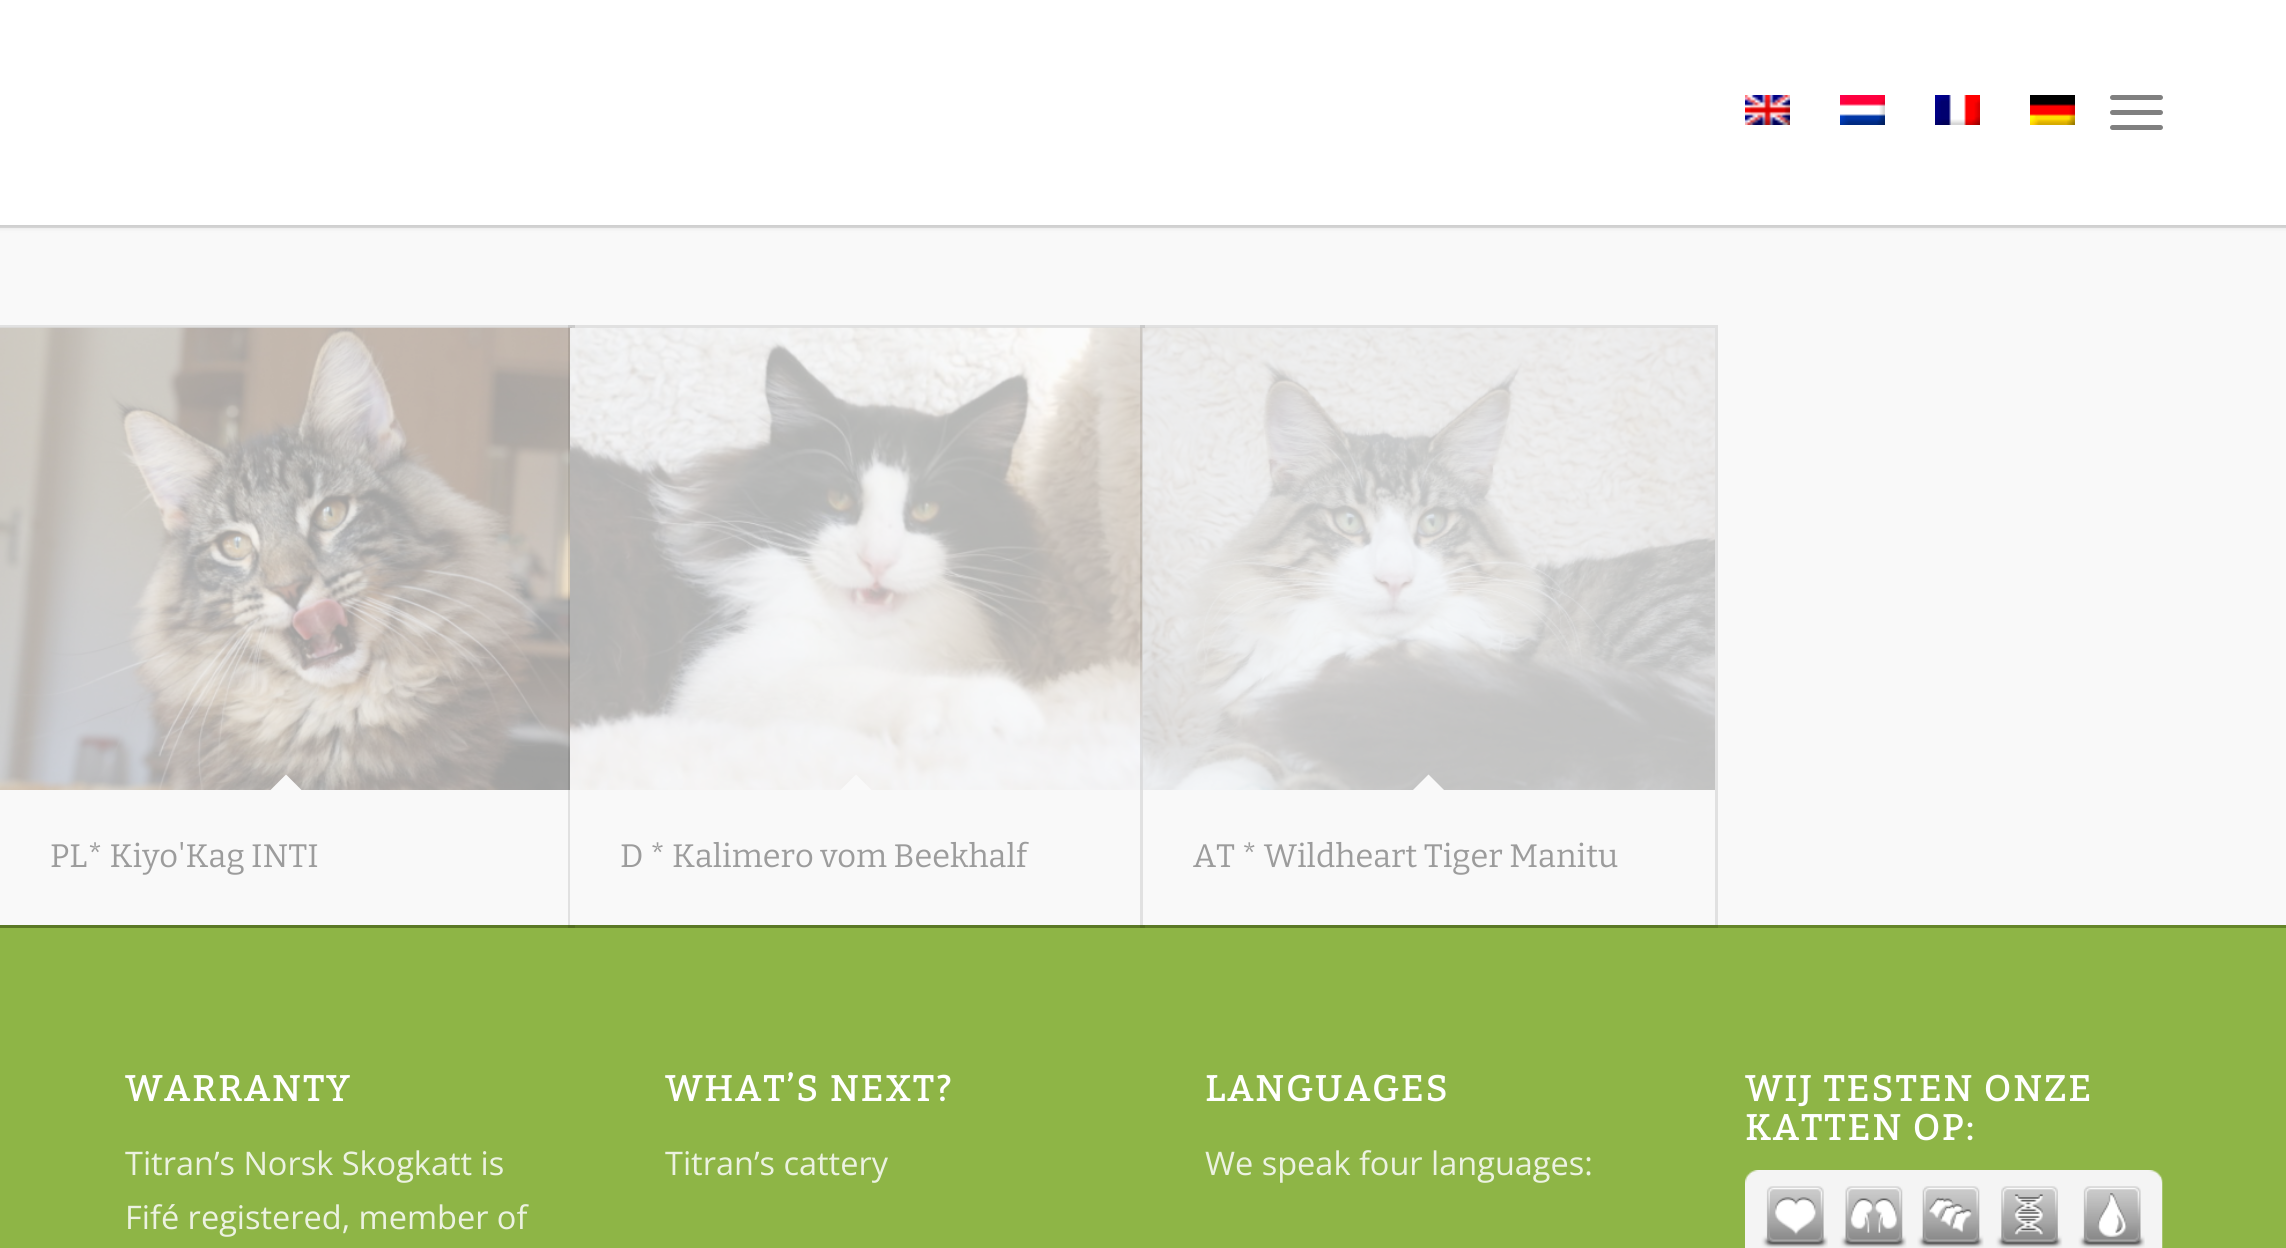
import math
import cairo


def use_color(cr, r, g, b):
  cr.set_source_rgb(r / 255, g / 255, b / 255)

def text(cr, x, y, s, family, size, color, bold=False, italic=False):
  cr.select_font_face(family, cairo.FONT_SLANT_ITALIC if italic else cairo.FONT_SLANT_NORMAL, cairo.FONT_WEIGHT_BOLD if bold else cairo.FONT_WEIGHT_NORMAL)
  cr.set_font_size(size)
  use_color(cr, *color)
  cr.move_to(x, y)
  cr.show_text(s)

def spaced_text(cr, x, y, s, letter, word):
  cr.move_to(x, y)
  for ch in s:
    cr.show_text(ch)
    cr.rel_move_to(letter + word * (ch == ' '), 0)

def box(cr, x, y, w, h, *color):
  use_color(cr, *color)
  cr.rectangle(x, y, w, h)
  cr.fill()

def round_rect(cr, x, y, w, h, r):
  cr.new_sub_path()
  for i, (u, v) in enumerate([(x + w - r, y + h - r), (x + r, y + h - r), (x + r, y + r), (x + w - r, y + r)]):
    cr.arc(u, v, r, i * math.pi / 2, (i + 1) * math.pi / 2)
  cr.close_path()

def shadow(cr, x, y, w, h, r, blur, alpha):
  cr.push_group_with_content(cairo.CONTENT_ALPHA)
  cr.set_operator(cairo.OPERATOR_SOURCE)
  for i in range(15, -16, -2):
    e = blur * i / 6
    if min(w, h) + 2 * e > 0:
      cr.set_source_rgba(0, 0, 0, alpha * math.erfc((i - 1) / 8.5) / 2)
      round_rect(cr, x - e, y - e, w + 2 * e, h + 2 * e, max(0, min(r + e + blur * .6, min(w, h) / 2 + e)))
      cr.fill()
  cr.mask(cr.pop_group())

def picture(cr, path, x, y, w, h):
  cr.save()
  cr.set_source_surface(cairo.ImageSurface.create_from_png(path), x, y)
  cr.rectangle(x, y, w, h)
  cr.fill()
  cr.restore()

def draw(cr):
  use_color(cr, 249, 249, 249)
  cr.paint()
  box(cr, 0, 225, 2286, 3, 225, 225, 225)
  use_color(cr, 0, 0, 0)
  shadow(cr, -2, -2, 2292, 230, 0, 2.5, 0.1)
  box(cr, 0, 0, 2286, 225, 255, 255, 255)
  picture(cr, "img_01.png", 1745, 95, 45, 30)
  picture(cr, "img_02.png", 1840, 95, 45, 30)
  picture(cr, "img_03.png", 1935, 95, 45, 30)
  picture(cr, "img_04.png", 2030, 95, 45, 30)
  use_color(cr, 128, 128, 128)
  round_rect(cr, 2110, 110, 53, 5, 2.5)
  cr.fill()
  round_rect(cr, 2110, 95, 53, 5, 2.5)
  cr.fill()
  round_rect(cr, 2110, 125, 53, 5, 2.5)
  cr.fill()
  box(cr, 0, 925, 2286, 3, 101, 133, 41)
  cr.rectangle(-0.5, 326.5, 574, 600)
  cr.set_source_rgba(0, 0, 0, 0.1)
  cr.set_line_width(3)
  cr.stroke()
  box(cr, 0, 328, 1, 597, 249, 249, 249)
  picture(cr, "img_05.png", 0, 327, 572, 463)
  cr.new_path()
  cr.move_to(286, 774.5)
  cr.line_to(303.5, 792)
  cr.line_to(286, 810)
  cr.line_to(268.5, 792)
  cr.close_path()
  cr.fill()
  cr.rectangle(569.5, 326.5, 574, 600)
  cr.set_source_rgba(0, 0, 0, 0.1)
  cr.stroke()
  box(cr, 570, 328, 573, 597, 249, 249, 249)
  picture(cr, "img_06.png", 570, 327, 573, 463)
  cr.new_path()
  cr.move_to(856, 774.5)
  cr.line_to(873.5, 792)
  cr.line_to(856, 810)
  cr.line_to(838.5, 792)
  cr.close_path()
  cr.fill()
  cr.rectangle(1141.5, 326.5, 575, 600)
  cr.set_source_rgba(0, 0, 0, 0.1)
  cr.stroke()
  box(cr, 1143, 328, 2, 597, 249, 249, 249)
  picture(cr, "img_07.png", 1142, 327, 573, 463)
  cr.new_path()
  cr.move_to(1428.5, 774.5)
  cr.line_to(1446, 792)
  cr.line_to(1428.5, 810)
  cr.line_to(1411, 792)
  cr.close_path()
  cr.fill()
  box(cr, 0, 928, 2286, 320, 142, 181, 70)
  picture(cr, "img_08.png", 1745, 1170, 418, 78)
  text(cr, 50, 867, "PL* Kiyo'Kag INTI", "Bitter Thin", 32.5, (156, 156, 156))
  text(cr, 620, 867, "D * Kalimero vom Beekhalf", "Bitter Thin", 32.5, (156, 156, 156))
  text(cr, 1193, 867, "AT * Wildheart Tiger Manitu", "Bitter Thin", 32.5, (156, 156, 156))
  cr.select_font_face("Bitter", cairo.FONT_SLANT_NORMAL, cairo.FONT_WEIGHT_BOLD)
  cr.set_font_size(35.75)
  use_color(cr, 255, 255, 255)
  spaced_text(cr, 125, 1101, "WARRANTY", 2.5, 0)
  text(cr, 125, 1175, "Titran’s Norsk Skogkatt is", "Open Sans", 32.5, (236, 242, 225))
  text(cr, 125, 1229, "Fifé registered, member of", "Open Sans", 32.5, (236, 242, 225))
  cr.select_font_face("Bitter", cairo.FONT_SLANT_NORMAL, cairo.FONT_WEIGHT_BOLD)
  cr.set_font_size(35.75)
  use_color(cr, 255, 255, 255)
  spaced_text(cr, 665, 1101, "WHAT’S NEXT?", 2.5, 0)
  text(cr, 665, 1175, "Titran’s cattery", "Open Sans", 32.5, (236, 242, 225))
  cr.select_font_face("Bitter", cairo.FONT_SLANT_NORMAL, cairo.FONT_WEIGHT_BOLD)
  cr.set_font_size(35.75)
  use_color(cr, 255, 255, 255)
  spaced_text(cr, 1205, 1101, "LANGUAGES", 2.5, 0)
  text(cr, 1205, 1175, "We speak four languages:", "Open Sans", 32.5, (236, 242, 225))
  cr.select_font_face("Bitter", cairo.FONT_SLANT_NORMAL, cairo.FONT_WEIGHT_BOLD)
  cr.set_font_size(35.75)
  use_color(cr, 255, 255, 255)
  spaced_text(cr, 1745, 1101, "WIJ TESTEN ONZE", 2.5, 0)
  spaced_text(cr, 1745, 1140, "KATTEN OP:", 2.5, 0)


surface = cairo.ImageSurface(cairo.FORMAT_RGB24, 2286, 1248)
cr = cairo.Context(surface)
options = cairo.FontOptions()
options.set_hint_metrics(cairo.HINT_METRICS_OFF)
options.set_hint_style(cairo.HINT_STYLE_NONE)
cr.set_font_options(options)
cr.set_miter_limit(4)
draw(cr)
surface.write_to_png("out.png")
